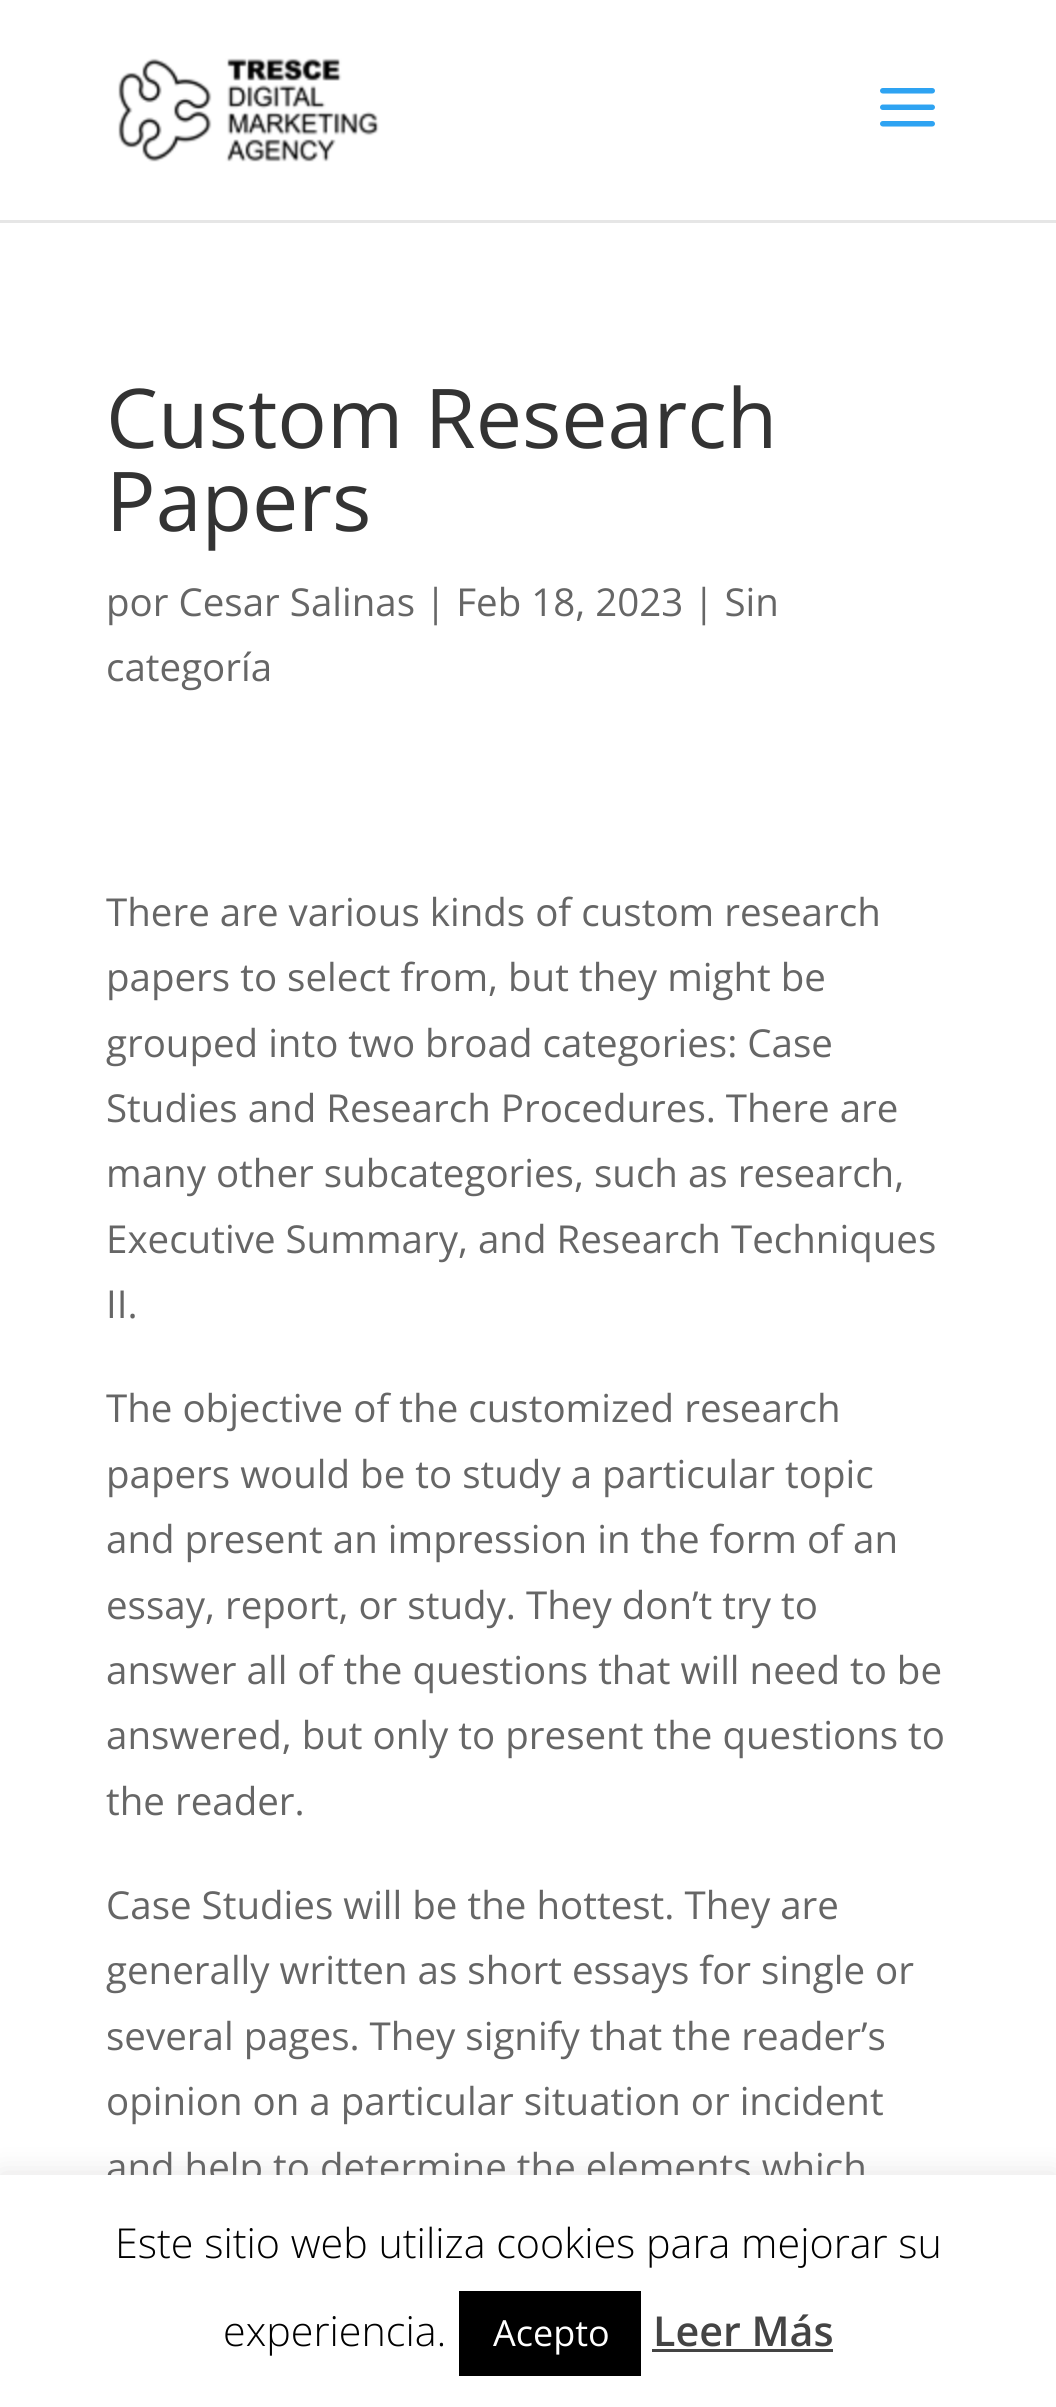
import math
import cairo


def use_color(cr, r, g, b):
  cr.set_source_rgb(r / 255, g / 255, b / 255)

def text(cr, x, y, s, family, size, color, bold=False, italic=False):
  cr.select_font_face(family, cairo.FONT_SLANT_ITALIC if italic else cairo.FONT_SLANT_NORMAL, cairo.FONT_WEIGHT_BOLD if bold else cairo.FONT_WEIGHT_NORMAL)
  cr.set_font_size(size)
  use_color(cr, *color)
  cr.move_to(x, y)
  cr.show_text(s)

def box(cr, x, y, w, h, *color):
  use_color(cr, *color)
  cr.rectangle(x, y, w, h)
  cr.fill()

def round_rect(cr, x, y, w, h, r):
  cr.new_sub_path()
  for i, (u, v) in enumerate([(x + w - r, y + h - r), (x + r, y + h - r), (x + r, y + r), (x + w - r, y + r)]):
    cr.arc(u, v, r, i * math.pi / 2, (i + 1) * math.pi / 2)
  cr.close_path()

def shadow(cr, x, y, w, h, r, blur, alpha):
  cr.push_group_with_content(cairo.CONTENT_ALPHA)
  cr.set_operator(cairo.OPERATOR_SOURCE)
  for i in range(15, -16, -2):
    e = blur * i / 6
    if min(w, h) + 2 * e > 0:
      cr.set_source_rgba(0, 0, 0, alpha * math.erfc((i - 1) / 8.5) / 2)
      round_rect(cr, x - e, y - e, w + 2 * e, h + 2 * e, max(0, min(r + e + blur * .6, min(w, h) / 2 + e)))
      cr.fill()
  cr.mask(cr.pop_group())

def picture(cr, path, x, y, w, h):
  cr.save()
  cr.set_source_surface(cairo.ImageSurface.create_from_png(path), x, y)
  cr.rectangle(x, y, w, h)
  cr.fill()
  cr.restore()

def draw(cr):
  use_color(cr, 255, 255, 255)
  cr.paint()
  box(cr, 0, 220, 1056, 3, 230, 230, 230)
  picture(cr, "img_01.png", 118, 58, 261, 104)
  picture(cr, "img_02.png", 880, 88, 55, 39)
  use_color(cr, 172, 171, 171)
  shadow(cr, 0, 2173, 1056, 233, 0, 14, 0.3)
  text(cr, 106, 448, "Custom Research", "Open Sans", 82.5, (51, 51, 51))
  text(cr, 106, 531, "Papers", "Open Sans", 82.5, (51, 51, 51))
  text(cr, 106, 616, "por Cesar Salinas | Feb 18, 2023 | Sin", "Open Sans", 38.5, (102, 102, 102))
  text(cr, 106, 681, "categoría", "Open Sans", 38.5, (102, 102, 102))
  text(cr, 106, 926, "There are various kinds of custom research", "Open Sans", 38.5, (102, 102, 102))
  text(cr, 106, 991, "papers to select from, but they might be", "Open Sans", 38.5, (102, 102, 102))
  text(cr, 106, 1057, "grouped into two broad categories: Case", "Open Sans", 38.5, (102, 102, 102))
  text(cr, 106, 1122, "Studies and Research Procedures. There are", "Open Sans", 38.5, (102, 102, 102))
  text(cr, 106, 1187, "many other subcategories, such as research,", "Open Sans", 38.5, (102, 102, 102))
  text(cr, 106, 1253, "Executive Summary, and Research Techniques", "Open Sans", 38.5, (102, 102, 102))
  text(cr, 106, 1318, "II.", "Open Sans", 38.5, (102, 102, 102))
  text(cr, 106, 1422, "The objective of the customized research", "Open Sans", 38.5, (102, 102, 102))
  text(cr, 106, 1488, "papers would be to study a particular topic", "Open Sans", 38.5, (102, 102, 102))
  text(cr, 106, 1553, "and present an impression in the form of an", "Open Sans", 38.5, (102, 102, 102))
  text(cr, 106, 1619, "essay, report, or study. They don’t try to", "Open Sans", 38.5, (102, 102, 102))
  text(cr, 106, 1684, "answer all of the questions that will need to be", "Open Sans", 38.5, (102, 102, 102))
  text(cr, 106, 1749, "answered, but only to present the questions to", "Open Sans", 38.5, (102, 102, 102))
  text(cr, 106, 1815, "the reader.", "Open Sans", 38.5, (102, 102, 102))
  text(cr, 106, 1919, "Case Studies will be the hottest. They are", "Open Sans", 38.5, (102, 102, 102))
  text(cr, 106, 1984, "generally written as short essays for single or", "Open Sans", 38.5, (102, 102, 102))
  text(cr, 106, 2050, "several pages. They signify that the reader’s", "Open Sans", 38.5, (102, 102, 102))
  text(cr, 106, 2115, "opinion on a particular situation or incident", "Open Sans", 38.5, (102, 102, 102))
  text(cr, 106, 2181, "and help to determine the elements which", "Open Sans", 38.5, (102, 102, 102))
  box(cr, 0, 2175, 1056, 232, 255, 255, 255)
  text(cr, 115, 2258, "Este sitio web utiliza cookies para mejorar su", "Open Sans Light", 41.25, (0, 0, 0))
  text(cr, 223, 2346, "experiencia.", "Open Sans Light", 41.25, (0, 0, 0))
  box(cr, 459, 2291, 182, 85, 0, 0, 0)
  text(cr, 493, 2346, "Acepto", "Open Sans", 36, (255, 255, 255))
  text(cr, 653, 2346, "Leer Más", "Open Sans SemiBold", 41.25, (68, 68, 68))
  box(cr, 652, 2349, 181, 3, 68, 68, 68)


surface = cairo.ImageSurface(cairo.FORMAT_RGB24, 1056, 2407)
cr = cairo.Context(surface)
options = cairo.FontOptions()
options.set_hint_metrics(cairo.HINT_METRICS_OFF)
options.set_hint_style(cairo.HINT_STYLE_NONE)
cr.set_font_options(options)
cr.set_miter_limit(4)
draw(cr)
surface.write_to_png("out.png")
